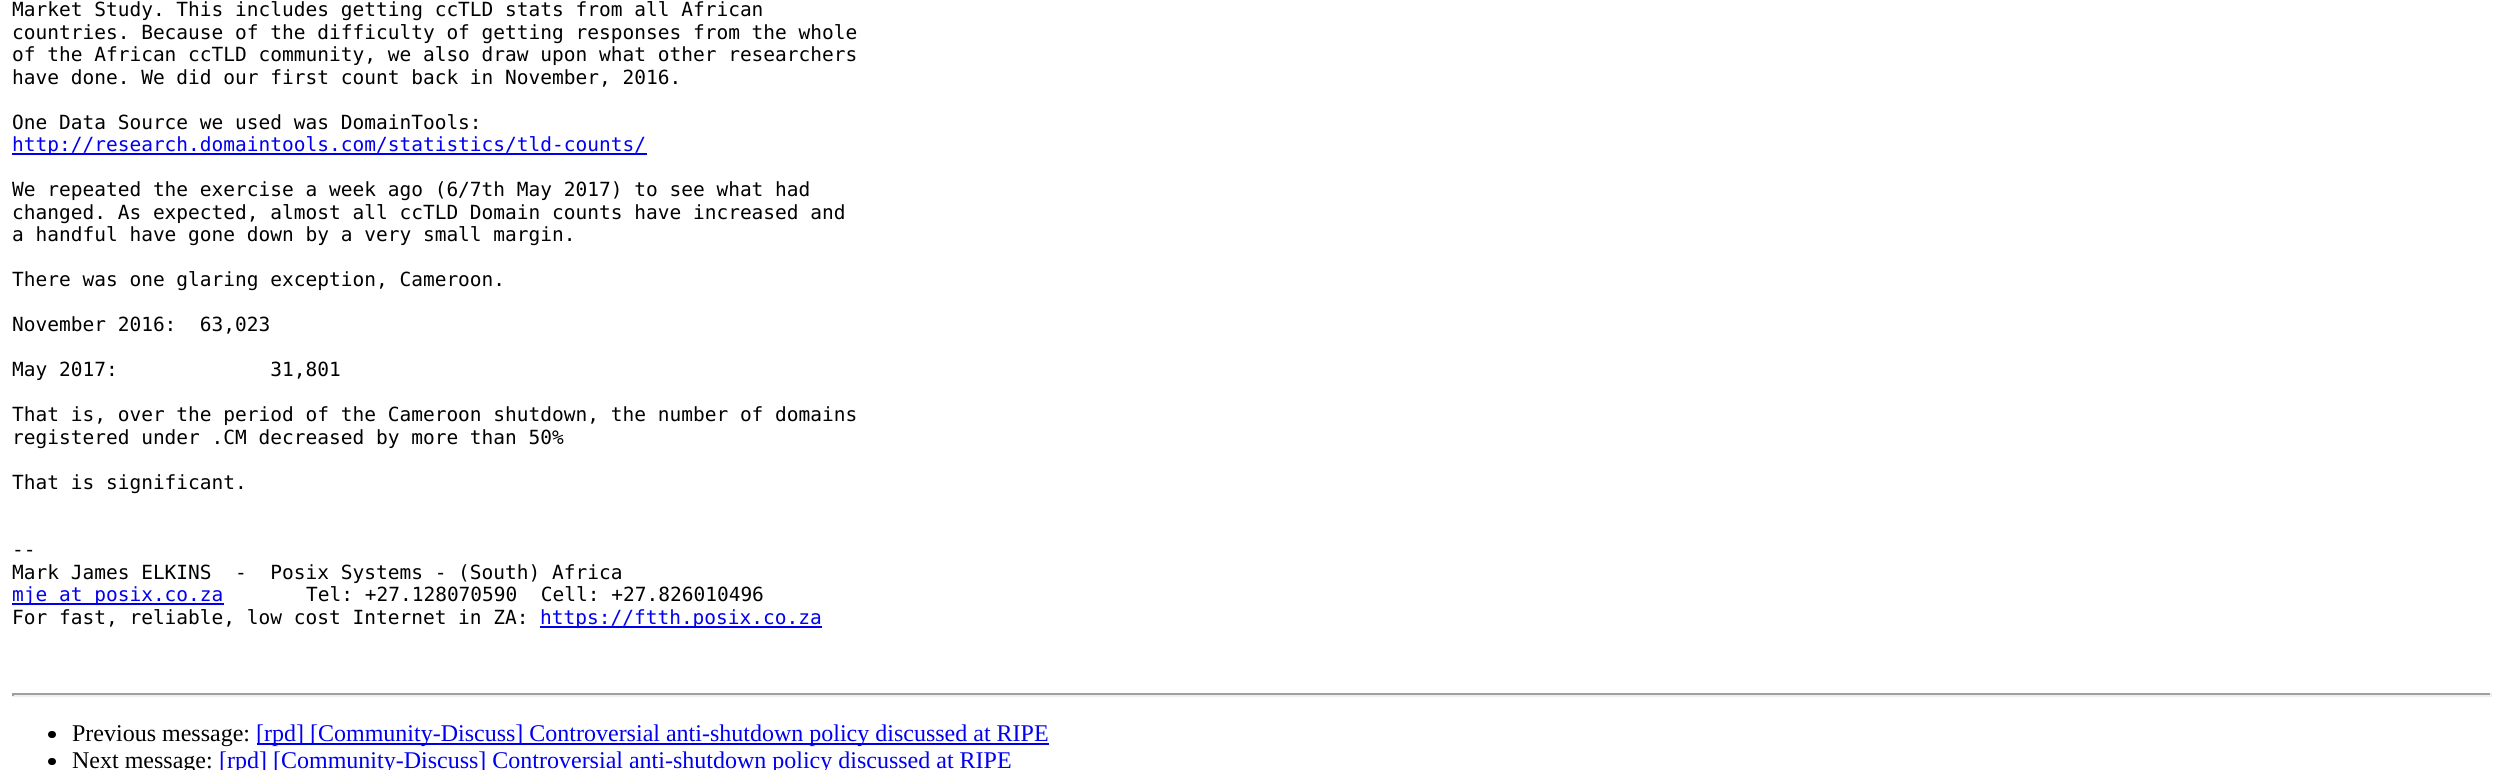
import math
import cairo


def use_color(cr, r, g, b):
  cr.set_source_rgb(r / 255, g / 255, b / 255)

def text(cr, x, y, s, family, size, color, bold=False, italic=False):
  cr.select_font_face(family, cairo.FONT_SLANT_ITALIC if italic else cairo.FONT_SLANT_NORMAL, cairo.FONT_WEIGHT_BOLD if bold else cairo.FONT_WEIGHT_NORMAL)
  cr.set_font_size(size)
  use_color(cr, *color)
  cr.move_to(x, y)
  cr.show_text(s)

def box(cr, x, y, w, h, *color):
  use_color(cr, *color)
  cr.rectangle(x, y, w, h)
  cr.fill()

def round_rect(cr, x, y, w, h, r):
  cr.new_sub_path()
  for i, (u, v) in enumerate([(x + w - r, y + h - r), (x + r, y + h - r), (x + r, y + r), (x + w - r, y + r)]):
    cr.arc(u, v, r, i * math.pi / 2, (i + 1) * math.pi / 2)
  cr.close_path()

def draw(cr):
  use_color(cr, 255, 255, 255)
  cr.paint()
  box(cr, 12, 153, 635, 2, 0, 0, 238)
  box(cr, 12, 603, 212, 2, 0, 0, 238)
  box(cr, 540, 626, 282, 2, 0, 0, 238)
  box(cr, 12, 693, 2480, 2, 159, 159, 159)
  box(cr, 2490, 693, 2, 3, 238, 238, 238)
  box(cr, 12, 695, 2480, 2, 238, 238, 238)
  box(cr, 12, 693, 2, 3, 159, 159, 159)
  use_color(cr, 0, 0, 0)
  round_rect(cr, 48, 731, 8, 7, 3.5)
  cr.fill()
  box(cr, 257, 743, 792, 2, 0, 0, 238)
  use_color(cr, 0, 0, 0)
  round_rect(cr, 48, 758, 8, 7, 3.5)
  cr.fill()
  text(cr, 12, 16, "Market Study. This includes getting ccTLD stats from all African", "DejaVu Sans Mono", 19.5, (0, 0, 0))
  text(cr, 12, 39, "countries. Because of the difficulty of getting responses from the whole", "DejaVu Sans Mono", 19.5, (0, 0, 0))
  text(cr, 12, 61, "of the African ccTLD community, we also draw upon what other researchers", "DejaVu Sans Mono", 19.5, (0, 0, 0))
  text(cr, 12, 84, "have done. We did our first count back in November, 2016.", "DejaVu Sans Mono", 19.5, (0, 0, 0))
  text(cr, 12, 129, "One Data Source we used was DomainTools:", "DejaVu Sans Mono", 19.5, (0, 0, 0))
  text(cr, 12, 151, "http://research.domaintools.com/statistics/tld-counts/", "DejaVu Sans Mono", 19.5, (0, 0, 238))
  text(cr, 12, 196, "We repeated the exercise a week ago (6/7th May 2017) to see what had", "DejaVu Sans Mono", 19.5, (0, 0, 0))
  text(cr, 12, 219, "changed. As expected, almost all ccTLD Domain counts have increased and", "DejaVu Sans Mono", 19.5, (0, 0, 0))
  text(cr, 12, 241, "a handful have gone down by a very small margin.", "DejaVu Sans Mono", 19.5, (0, 0, 0))
  text(cr, 12, 286, "There was one glaring exception, Cameroon.", "DejaVu Sans Mono", 19.5, (0, 0, 0))
  text(cr, 12, 331, "November 2016:  63,023", "DejaVu Sans Mono", 19.5, (0, 0, 0))
  text(cr, 12, 376, "May 2017:             31,801", "DejaVu Sans Mono", 19.5, (0, 0, 0))
  text(cr, 12, 421, "That is, over the period of the Cameroon shutdown, the number of domains", "DejaVu Sans Mono", 19.5, (0, 0, 0))
  text(cr, 12, 444, "registered under .CM decreased by more than 50%", "DejaVu Sans Mono", 19.5, (0, 0, 0))
  text(cr, 12, 489, "That is significant.", "DejaVu Sans Mono", 19.5, (0, 0, 0))
  text(cr, 12, 556, "--", "DejaVu Sans Mono", 19.5, (0, 0, 0))
  text(cr, 12, 579, "Mark James ELKINS  -  Posix Systems - (South) Africa", "DejaVu Sans Mono", 19.5, (0, 0, 0))
  text(cr, 12, 601, "mje at posix.co.za", "DejaVu Sans Mono", 19.5, (0, 0, 238))
  text(cr, 306, 601, "Tel: +27.128070590  Cell: +27.826010496", "DejaVu Sans Mono", 19.5, (0, 0, 0))
  text(cr, 12, 624, "For fast, reliable, low cost Internet in ZA:", "DejaVu Sans Mono", 19.5, (0, 0, 0))
  text(cr, 540, 624, "https://ftth.posix.co.za", "DejaVu Sans Mono", 19.5, (0, 0, 238))
  text(cr, 72, 741, "Previous message:", "Liberation Serif", 24, (0, 0, 0))
  text(cr, 256, 741, "[rpd] [Community-Discuss] Controversial anti-shutdown policy discussed at RIPE", "Liberation Serif", 24, (0, 0, 238))
  text(cr, 72, 768, "Next message:", "Liberation Serif", 24, (0, 0, 0))
  text(cr, 219, 768, "[rpd] [Community-Discuss] Controversial anti-shutdown policy discussed at RIPE", "Liberation Serif", 24, (0, 0, 238))


surface = cairo.ImageSurface(cairo.FORMAT_RGB24, 2503, 770)
cr = cairo.Context(surface)
options = cairo.FontOptions()
options.set_hint_metrics(cairo.HINT_METRICS_OFF)
options.set_hint_style(cairo.HINT_STYLE_NONE)
cr.set_font_options(options)
cr.set_miter_limit(4)
draw(cr)
surface.write_to_png("out.png")
